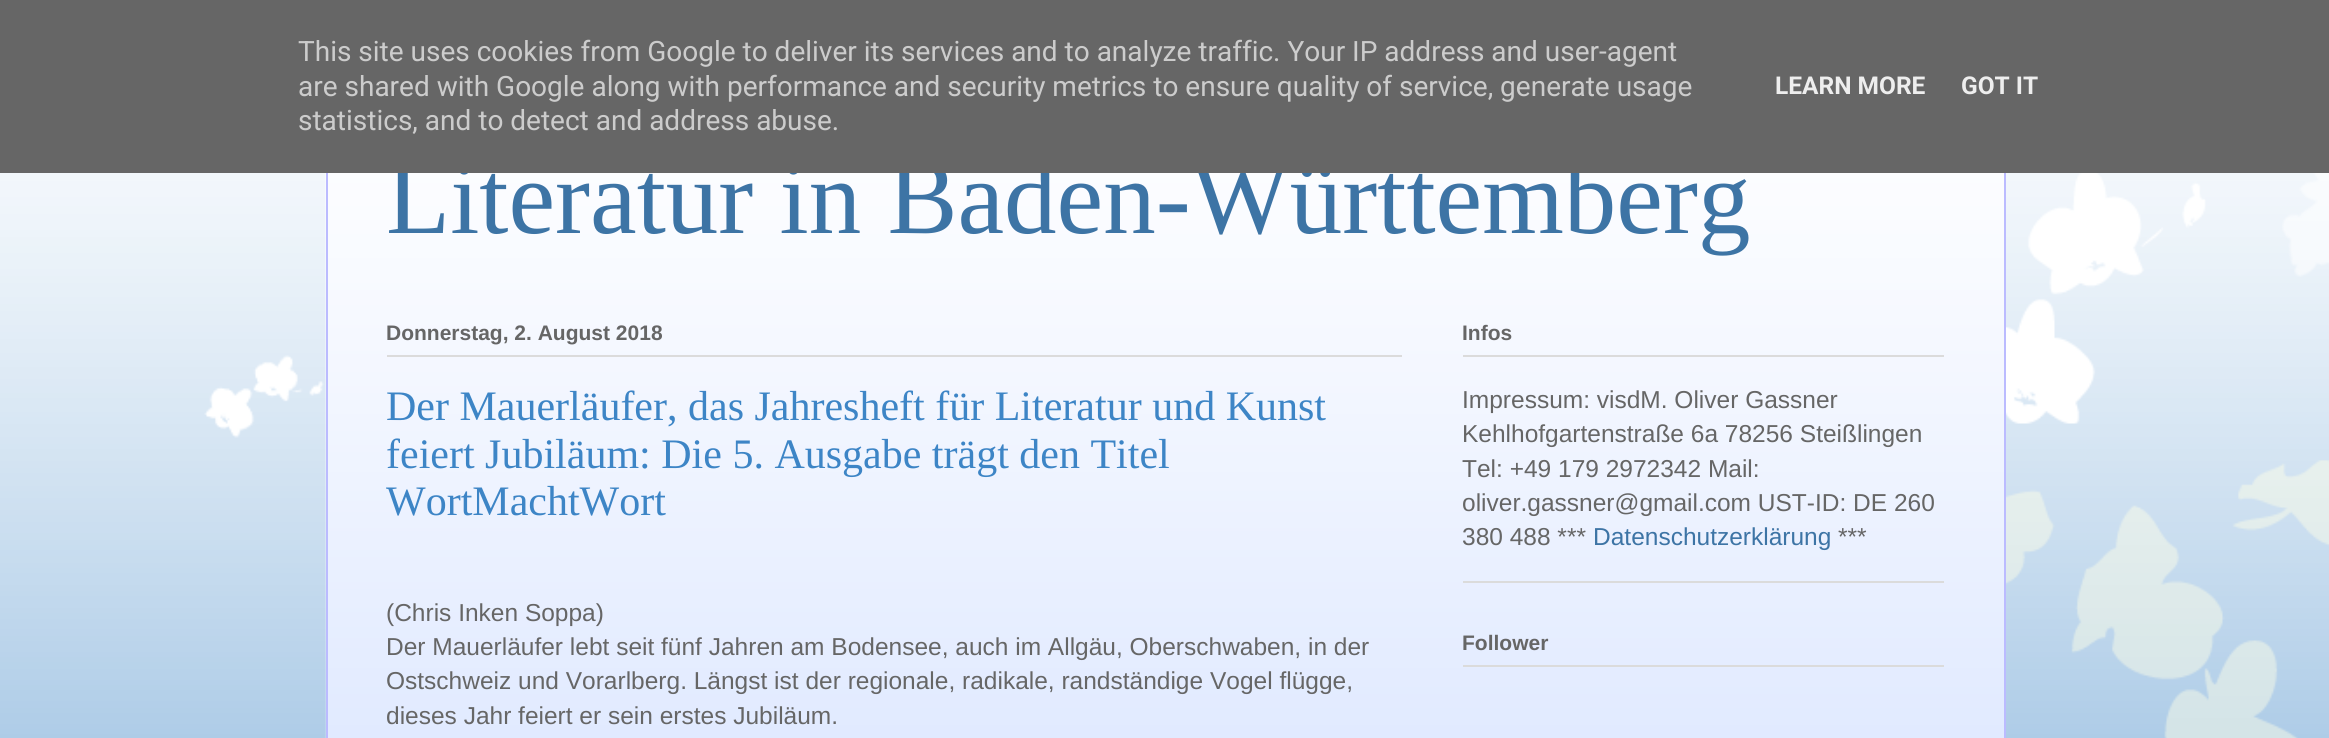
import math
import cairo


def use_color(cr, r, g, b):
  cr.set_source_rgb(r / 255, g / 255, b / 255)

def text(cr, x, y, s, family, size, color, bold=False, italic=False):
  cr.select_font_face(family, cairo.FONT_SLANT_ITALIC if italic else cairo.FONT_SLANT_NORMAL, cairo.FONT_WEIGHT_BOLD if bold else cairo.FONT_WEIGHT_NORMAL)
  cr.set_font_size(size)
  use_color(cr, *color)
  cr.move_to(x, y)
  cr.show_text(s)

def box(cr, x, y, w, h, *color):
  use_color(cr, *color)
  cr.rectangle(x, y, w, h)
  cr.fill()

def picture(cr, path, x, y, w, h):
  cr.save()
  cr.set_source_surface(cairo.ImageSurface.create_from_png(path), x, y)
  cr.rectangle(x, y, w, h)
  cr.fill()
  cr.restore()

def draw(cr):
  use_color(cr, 61, 133, 198)
  cr.paint()
  picture(cr, "img_02.png", 0, 173, 2329, 565)
  box(cr, 328, 173, 1676, 565, 212, 225, 255)
  picture(cr, "img_01.png", 325, 173, 1679, 565)
  box(cr, 387, 355, 1015, 2, 219, 219, 219)
  box(cr, 1463, 581, 481, 2, 219, 219, 219)
  box(cr, 1463, 355, 481, 2, 219, 219, 219)
  box(cr, 1463, 665, 481, 2, 219, 219, 219)
  box(cr, 2004, 173, 2, 565, 187, 187, 255)
  box(cr, 326, 173, 2, 565, 187, 187, 255)
  text(cr, 386, 233, "Literatur in Baden-Württemberg", "Liberation Serif", 105, (61, 116, 165))
  box(cr, 0, 0, 2329, 173, 102, 102, 102)
  text(cr, 1961, 94, "GOT IT", "Roboto", 24.5, (238, 238, 238), bold=True)
  text(cr, 1775, 94, "LEARN MORE", "Roboto", 24.5, (238, 238, 238), bold=True)
  text(cr, 298, 130, "statistics, and to detect and address abuse.", "Roboto", 28, (204, 204, 204))
  text(cr, 298, 96, "are shared with Google along with performance and security metrics to ensure quality of service, generate usage", "Roboto", 28, (204, 204, 204))
  text(cr, 298, 61, "This site uses cookies from Google to deliver its services and to analyze traffic. Your IP address and user-agent", "Roboto", 28, (204, 204, 204))
  text(cr, 386, 340, "Donnerstag, 2. August 2018", "Liberation Sans", 21, (102, 102, 102), bold=True)
  text(cr, 386, 420, "Der Mauerläufer, das Jahresheft für Literatur und Kunst", "Liberation Serif", 42, (61, 133, 198))
  text(cr, 386, 468, "feiert Jubiläum: Die 5. Ausgabe trägt den Titel", "Liberation Serif", 42, (61, 133, 198))
  text(cr, 386, 515, "WortMachtWort", "Liberation Serif", 42, (61, 133, 198))
  text(cr, 386, 621, "(Chris Inken Soppa)", "Liberation Sans", 24.5, (102, 102, 102))
  text(cr, 386, 655, "Der Mauerläufer lebt seit fünf Jahren am Bodensee, auch im Allgäu, Oberschwaben, in der", "Liberation Sans", 24.5, (102, 102, 102))
  text(cr, 386, 689, "Ostschweiz und Vorarlberg. Längst ist der regionale, radikale, randständige Vogel flügge,", "Liberation Sans", 24.5, (102, 102, 102))
  text(cr, 386, 724, "dieses Jahr feiert er sein erstes Jubiläum.", "Liberation Sans", 24.5, (102, 102, 102))
  text(cr, 1462, 340, "Infos", "Liberation Sans", 21, (102, 102, 102), bold=True)
  text(cr, 1462, 408, "Impressum: visdM. Oliver Gassner", "Liberation Sans", 24.5, (102, 102, 102))
  text(cr, 1462, 442, "Kehlhofgartenstraße 6a 78256 Steißlingen", "Liberation Sans", 24.5, (102, 102, 102))
  text(cr, 1462, 477, "Tel: +49 179 2972342 Mail:", "Liberation Sans", 24.5, (102, 102, 102))
  text(cr, 1462, 511, "oliver.gassner@gmail.com UST-ID: DE 260", "Liberation Sans", 24.5, (102, 102, 102))
  text(cr, 1462, 545, "380 488 ***", "Liberation Sans", 24.5, (102, 102, 102))
  text(cr, 1593, 545, "Datenschutzerklärung", "Liberation Sans", 24.5, (61, 116, 165))
  text(cr, 1838, 545, "***", "Liberation Sans", 24.5, (102, 102, 102))
  text(cr, 1462, 650, "Follower", "Liberation Sans", 21, (102, 102, 102), bold=True)


surface = cairo.ImageSurface(cairo.FORMAT_RGB24, 2329, 738)
cr = cairo.Context(surface)
options = cairo.FontOptions()
options.set_hint_metrics(cairo.HINT_METRICS_OFF)
options.set_hint_style(cairo.HINT_STYLE_NONE)
cr.set_font_options(options)
cr.set_miter_limit(4)
draw(cr)
surface.write_to_png("out.png")
